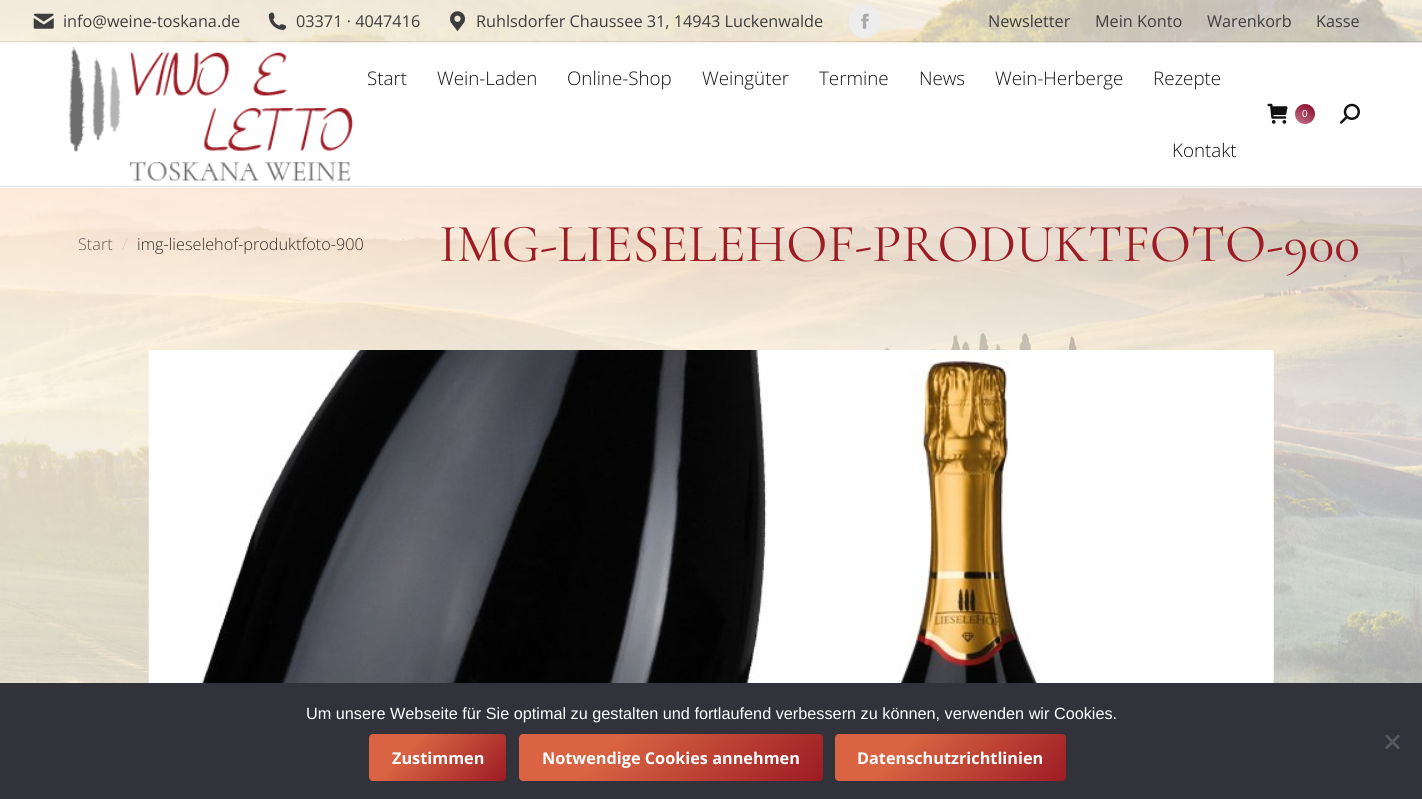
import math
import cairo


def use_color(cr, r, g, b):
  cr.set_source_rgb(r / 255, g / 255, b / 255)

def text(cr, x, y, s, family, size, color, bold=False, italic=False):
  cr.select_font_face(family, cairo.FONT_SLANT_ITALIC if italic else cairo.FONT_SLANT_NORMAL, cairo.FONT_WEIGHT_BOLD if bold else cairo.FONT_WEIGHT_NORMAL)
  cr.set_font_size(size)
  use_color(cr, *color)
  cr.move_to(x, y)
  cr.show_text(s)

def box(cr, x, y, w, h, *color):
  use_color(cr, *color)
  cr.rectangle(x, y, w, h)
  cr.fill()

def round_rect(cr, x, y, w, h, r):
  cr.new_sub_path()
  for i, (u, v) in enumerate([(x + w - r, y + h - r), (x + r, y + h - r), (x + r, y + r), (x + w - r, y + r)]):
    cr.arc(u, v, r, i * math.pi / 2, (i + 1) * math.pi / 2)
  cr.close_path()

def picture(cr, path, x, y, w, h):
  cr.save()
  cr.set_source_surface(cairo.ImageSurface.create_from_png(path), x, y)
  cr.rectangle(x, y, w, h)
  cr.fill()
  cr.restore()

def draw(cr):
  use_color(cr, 255, 255, 255)
  cr.paint()
  box(cr, 0, 186, 1422, 1, 227, 227, 227)
  picture(cr, "img_01.png", 0, 0, 1422, 43)
  picture(cr, "img_02.png", 33, 13, 21, 16)
  picture(cr, "img_03.png", 268, 12, 19, 18)
  picture(cr, "img_04.png", 450, 11, 15, 21)
  use_color(cr, 237, 237, 237)
  round_rect(cr, 849, 5, 32, 33, 16)
  cr.fill()
  picture(cr, "img_05.png", 861, 13, 8, 16)
  cr.set_source_rgba(0.227, 0.227, 0.227, 0.14)
  cr.rectangle(0, 41, 1422, 1)
  cr.fill()
  picture(cr, "img_06.png", 69, 46, 285, 136)
  picture(cr, "img_07.png", 1267, 103, 21, 21)
  gradient = cairo.LinearGradient(1298, 126, 1312, 102)
  gradient.add_color_stop_rgba(0, 0.769, 0.475, 0.569, 1)
  gradient.add_color_stop_rgba(1, 0.529, 0, 0.129, 1)
  cr.set_source(gradient)
  cr.arc(1305, 114, 10, 0, 2 * math.pi)
  cr.fill()
  picture(cr, "img_08.png", 1340, 103, 20, 21)
  picture(cr, "img_09.png", 0, 188, 1422, 495)
  picture(cr, "img_10.png", 148, 350, 1126, 333)
  box(cr, 0, 683, 1422, 116, 50, 50, 58)
  use_color(cr, 89, 89, 93)
  cr.new_path()
  cr.move_to(1398, 734.5)
  cr.line_to(1400, 736)
  cr.line_to(1387, 749.5)
  cr.line_to(1385, 747.5)
  cr.close_path()
  cr.fill()
  cr.new_path()
  cr.move_to(1385, 736)
  cr.line_to(1387, 734.5)
  cr.line_to(1400, 747.5)
  cr.line_to(1398, 749.5)
  cr.close_path()
  cr.fill()
  gradient = cairo.LinearGradient(391, 711, 484, 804)
  gradient.add_color_stop_rgba(0.3, 0.851, 0.388, 0.259, 1)
  gradient.add_color_stop_rgba(1, 0.612, 0.106, 0.141, 1)
  cr.set_source(gradient)
  round_rect(cr, 369, 734, 137, 47, 4)
  cr.fill()
  gradient = cairo.LinearGradient(583, 670, 758, 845)
  gradient.add_color_stop_rgba(0.3, 0.851, 0.388, 0.259, 1)
  gradient.add_color_stop_rgba(1, 0.612, 0.106, 0.141, 1)
  cr.set_source(gradient)
  round_rect(cr, 519, 734, 304, 47, 4)
  cr.fill()
  gradient = cairo.LinearGradient(881, 688, 1020, 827)
  gradient.add_color_stop_rgba(0.3, 0.851, 0.388, 0.259, 1)
  gradient.add_color_stop_rgba(1, 0.612, 0.106, 0.141, 1)
  cr.set_source(gradient)
  round_rect(cr, 835, 734, 231, 47, 4)
  cr.fill()
  text(cr, 63, 27, "info@weine-toskana.de", "Open Sans", 16.25, (61, 61, 61))
  text(cr, 296, 27, "03371 · 4047416", "Open Sans", 16.25, (61, 61, 61))
  text(cr, 476, 27, "Ruhlsdorfer Chaussee 31, 14943 Luckenwalde", "Open Sans", 16.25, (61, 61, 61))
  text(cr, 988, 27, "Newsletter", "Open Sans", 16.25, (61, 61, 61))
  text(cr, 1095, 27, "Mein Konto", "Open Sans", 16.25, (61, 61, 61))
  text(cr, 1207, 27, "Warenkorb", "Open Sans", 16.25, (61, 61, 61))
  text(cr, 1316, 27, "Kasse", "Open Sans", 16.25, (61, 61, 61))
  text(cr, 367, 85, "Start", "Open Sans Light", 18.75, (17, 17, 17))
  text(cr, 437, 85, "Wein-Laden", "Open Sans Light", 18.75, (17, 17, 17))
  text(cr, 567, 85, "Online-Shop", "Open Sans Light", 18.75, (17, 17, 17))
  text(cr, 702, 85, "Weingüter", "Open Sans Light", 18.75, (17, 17, 17))
  text(cr, 819, 85, "Termine", "Open Sans Light", 18.75, (17, 17, 17))
  text(cr, 919, 85, "News", "Open Sans Light", 18.75, (17, 17, 17))
  text(cr, 995, 85, "Wein-Herberge", "Open Sans Light", 18.75, (17, 17, 17))
  text(cr, 1153, 85, "Rezepte", "Open Sans Light", 18.75, (17, 17, 17))
  text(cr, 1172, 157, "Kontakt", "Open Sans Light", 18.75, (17, 17, 17))
  text(cr, 1302, 117, "0", "Liberation Sans", 10, (255, 255, 255))
  text(cr, 78, 250, "Start", "Open Sans Light", 16.25, (98, 92, 85))
  text(cr, 122, 250, "/", "Open Sans Light", 16.25, (208, 199, 191))
  text(cr, 137, 250, "img-lieselehof-produktfoto-900", "Open Sans Light", 16.25, (49, 45, 42))
  text(cr, 439, 261, "IMG-LIESELEHOF-PRODUKTFOTO-900", "Cormorant Garamond Light", 53.75, (156, 27, 36))
  text(cr, 306, 719, "Um unsere Webseite für Sie optimal zu gestalten und fortlaufend verbessern zu können, verwenden wir Cookies.", "Liberation Sans", 16.25, (255, 255, 255))
  text(cr, 392, 764, "Zustimmen", "Open Sans", 16.25, (255, 255, 255), bold=True)
  text(cr, 542, 764, "Notwendige Cookies annehmen", "Open Sans", 16.25, (255, 255, 255), bold=True)
  text(cr, 857, 764, "Datenschutzrichtlinien", "Open Sans", 16.25, (255, 255, 255), bold=True)


surface = cairo.ImageSurface(cairo.FORMAT_RGB24, 1422, 799)
cr = cairo.Context(surface)
options = cairo.FontOptions()
options.set_hint_metrics(cairo.HINT_METRICS_OFF)
options.set_hint_style(cairo.HINT_STYLE_NONE)
cr.set_font_options(options)
cr.set_miter_limit(4)
draw(cr)
surface.write_to_png("out.png")
